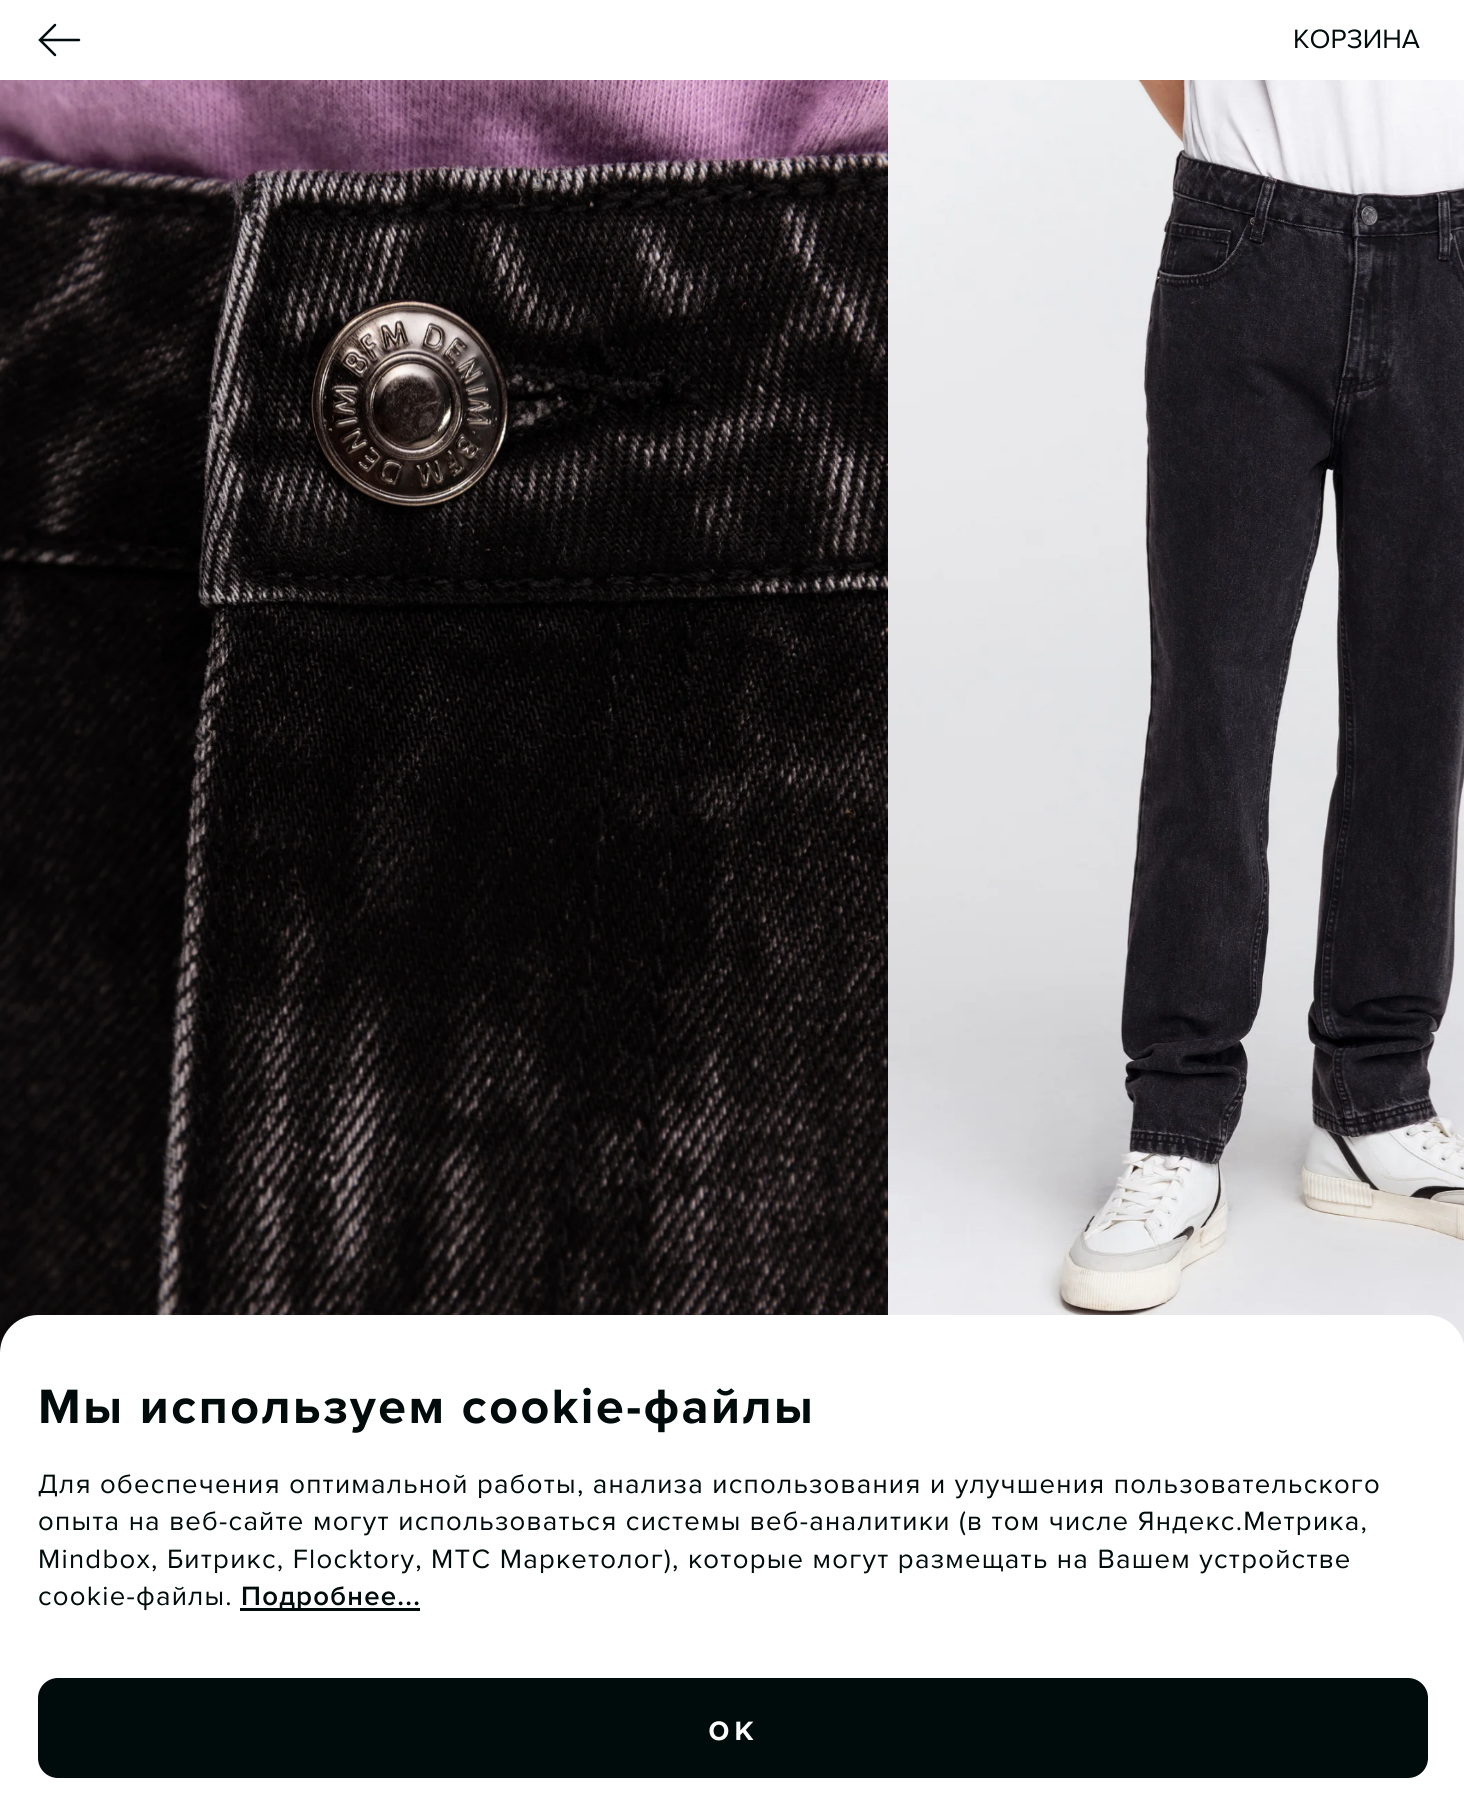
import math
import cairo


def use_color(cr, r, g, b):
  cr.set_source_rgb(r / 255, g / 255, b / 255)

def text(cr, x, y, s, family, size, color, bold=False, italic=False):
  cr.select_font_face(family, cairo.FONT_SLANT_ITALIC if italic else cairo.FONT_SLANT_NORMAL, cairo.FONT_WEIGHT_BOLD if bold else cairo.FONT_WEIGHT_NORMAL)
  cr.set_font_size(size)
  use_color(cr, *color)
  cr.move_to(x, y)
  cr.show_text(s)

def spaced_text(cr, x, y, s, letter, word):
  cr.move_to(x, y)
  for ch in s:
    cr.show_text(ch)
    cr.rel_move_to(letter + word * (ch == ' '), 0)

def box(cr, x, y, w, h, *color):
  use_color(cr, *color)
  cr.rectangle(x, y, w, h)
  cr.fill()

def round_rect(cr, x, y, w, h, r):
  cr.new_sub_path()
  for i, (u, v) in enumerate([(x + w - r, y + h - r), (x + r, y + h - r), (x + r, y + r), (x + w - r, y + r)]):
    cr.arc(u, v, r, i * math.pi / 2, (i + 1) * math.pi / 2)
  cr.close_path()

def picture(cr, path, x, y, w, h):
  cr.save()
  cr.set_source_surface(cairo.ImageSurface.create_from_png(path), x, y)
  cr.rectangle(x, y, w, h)
  cr.fill()
  cr.restore()

def draw(cr):
  use_color(cr, 255, 255, 255)
  cr.paint()
  cr.new_path()
  cr.move_to(55, 55)
  cr.line_to(40, 40)
  cr.line_to(55, 25)
  cr.move_to(41, 40)
  cr.line_to(79, 40)
  use_color(cr, 0, 11, 11)
  cr.set_line_width(2.5)
  cr.set_line_cap(cairo.LINE_CAP_ROUND)
  cr.stroke()
  picture(cr, "img_01.png", 0, 80, 888, 1273)
  picture(cr, "img_02.png", 888, 80, 576, 1265)
  use_color(cr, 255, 255, 255)
  cr.new_path()
  cr.move_to(38, 1315)
  cr.line_to(1427, 1315)
  cr.curve_to(1448, 1315, 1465, 1332, 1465, 1353)
  cr.line_to(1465, 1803)
  cr.line_to(0, 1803)
  cr.line_to(0, 1353)
  cr.curve_to(0, 1332, 17, 1315, 38, 1315)
  cr.close_path()
  cr.fill()
  box(cr, 240, 1608, 180, 3, 0, 11, 11)
  round_rect(cr, 38, 1678, 1390, 100, 20)
  cr.fill()
  text(cr, 1293, 48, "КОРЗИНА", "Proxima Nova", 27.5, (0, 11, 11))
  cr.select_font_face("Proxima Nova", cairo.FONT_SLANT_NORMAL, cairo.FONT_WEIGHT_BOLD)
  cr.set_font_size(50)
  spaced_text(cr, 38, 1423, "Мы используем cookie-файлы", 2.5, 0)
  cr.select_font_face("Proxima Nova")
  cr.set_font_size(27.5)
  spaced_text(cr, 38, 1493, "Для обеспечения оптимальной работы, анализа использования и улучшения пользовательского", 1.25, 0)
  spaced_text(cr, 38, 1530, "опыта на веб-сайте могут использоваться системы веб-аналитики (в том числе Яндекс.Метрика,", 1.25, 0)
  spaced_text(cr, 38, 1568, "Mindbox, Битрикс, Flocktory, МТС Маркетолог), которые могут размещать на Вашем устройстве", 1.25, 0)
  spaced_text(cr, 38, 1605, "cookie-файлы.", 1.25, 0)
  cr.select_font_face("Proxima Nova SemiBold")
  spaced_text(cr, 241, 1605, "Подробнее...", 1.25, 0)
  cr.set_font_size(38)
  use_color(cr, 255, 255, 255)
  spaced_text(cr, 708, 1740, "ок", 4, 0)


surface = cairo.ImageSurface(cairo.FORMAT_RGB24, 1464, 1801)
cr = cairo.Context(surface)
options = cairo.FontOptions()
options.set_hint_metrics(cairo.HINT_METRICS_OFF)
options.set_hint_style(cairo.HINT_STYLE_NONE)
cr.set_font_options(options)
cr.set_miter_limit(4)
draw(cr)
surface.write_to_png("out.png")
